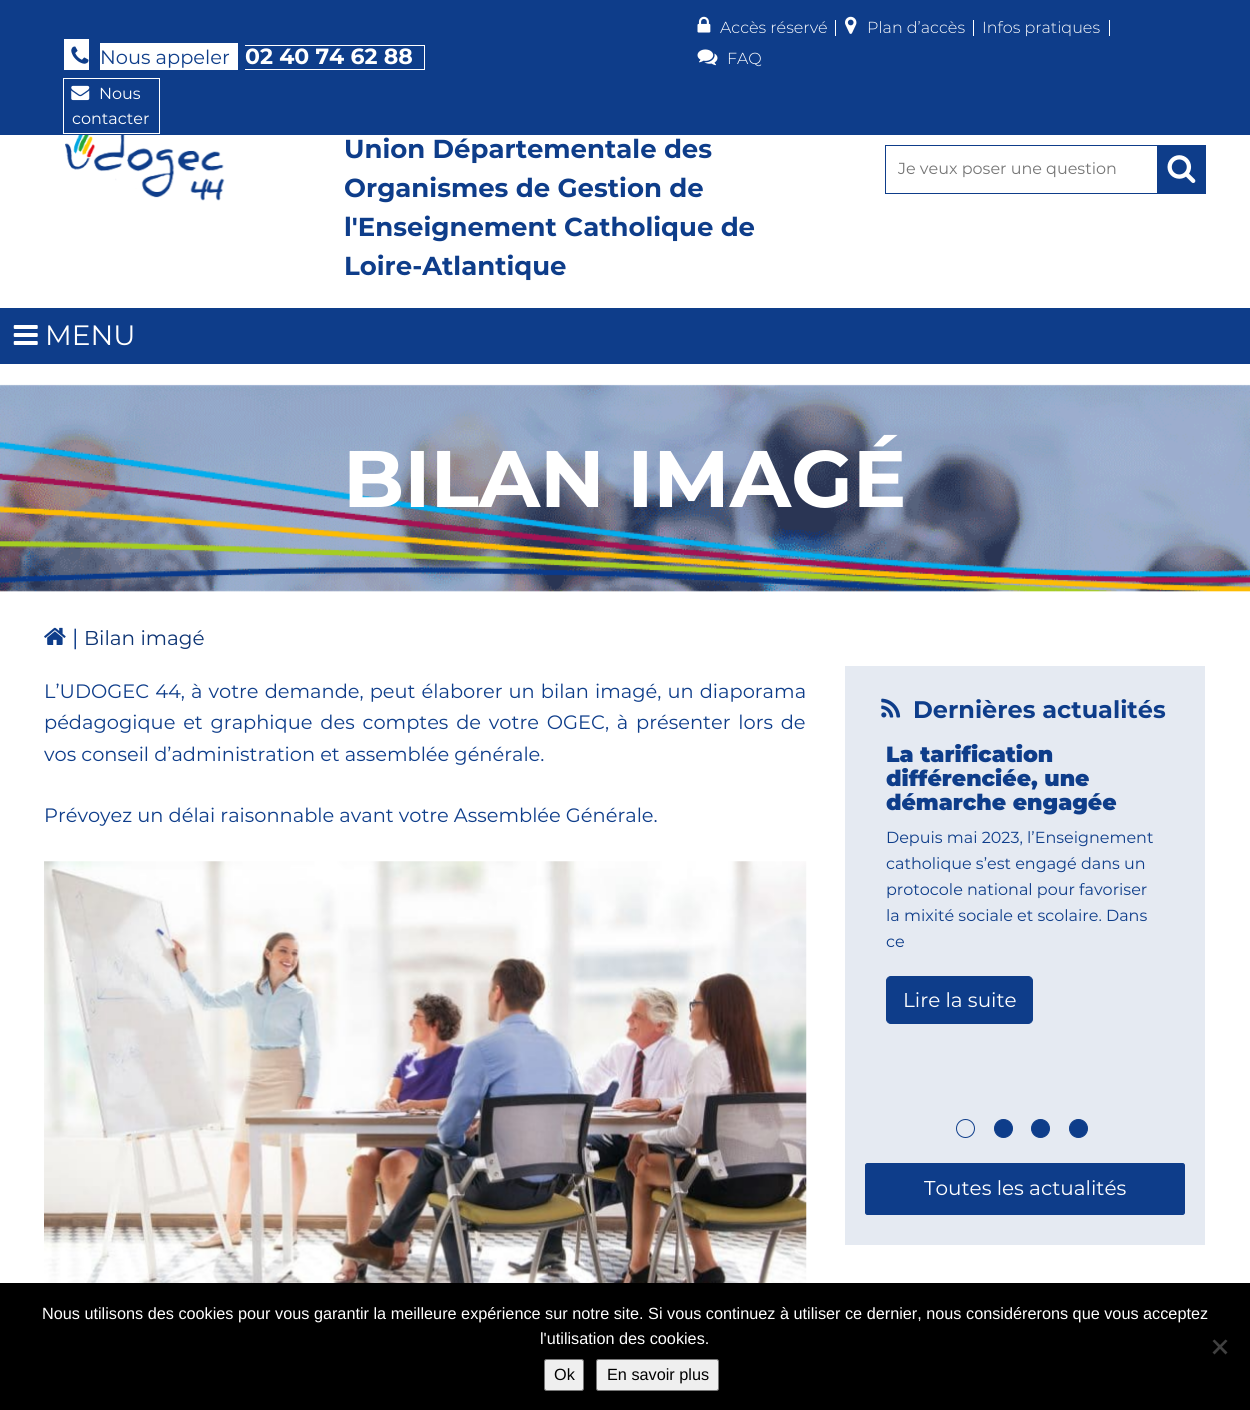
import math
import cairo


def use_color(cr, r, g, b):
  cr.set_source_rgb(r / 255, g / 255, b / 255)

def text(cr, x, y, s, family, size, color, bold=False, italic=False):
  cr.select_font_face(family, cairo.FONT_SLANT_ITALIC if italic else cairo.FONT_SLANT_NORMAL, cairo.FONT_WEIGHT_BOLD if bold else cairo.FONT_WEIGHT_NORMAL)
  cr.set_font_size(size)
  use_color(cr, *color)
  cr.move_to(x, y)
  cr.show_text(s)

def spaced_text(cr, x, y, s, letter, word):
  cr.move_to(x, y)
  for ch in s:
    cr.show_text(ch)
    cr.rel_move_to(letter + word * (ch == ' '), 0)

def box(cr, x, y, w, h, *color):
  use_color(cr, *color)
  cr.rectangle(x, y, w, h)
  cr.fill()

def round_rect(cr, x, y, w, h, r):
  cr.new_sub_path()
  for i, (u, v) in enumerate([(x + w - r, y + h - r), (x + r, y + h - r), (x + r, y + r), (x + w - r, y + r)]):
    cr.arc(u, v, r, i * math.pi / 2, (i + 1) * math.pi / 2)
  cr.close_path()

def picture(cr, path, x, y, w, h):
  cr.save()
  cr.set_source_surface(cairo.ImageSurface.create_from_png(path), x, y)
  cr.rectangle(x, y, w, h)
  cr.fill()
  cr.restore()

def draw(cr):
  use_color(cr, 255, 255, 255)
  cr.paint()
  box(cr, 0, 0, 1250, 135, 14, 61, 138)
  box(cr, 64, 39, 25, 31, 255, 255, 255)
  picture(cr, "img_01.png", 71, 46, 18, 18)
  box(cr, 100, 43, 138, 27, 255, 255, 255)
  box(cr, 245, 45, 180, 1, 255, 255, 255)
  box(cr, 424, 45, 1, 25, 255, 255, 255)
  box(cr, 245, 69, 180, 1, 255, 255, 255)
  cr.rectangle(63.5, 78.5, 96, 55)
  cr.set_line_width(1)
  cr.stroke()
  picture(cr, "img_02.png", 71, 85, 19, 16)
  picture(cr, "img_03.png", 697, 16, 14, 17)
  box(cr, 835, 20, 1, 16, 255, 255, 255)
  picture(cr, "img_04.png", 845, 16, 12, 18)
  box(cr, 973, 20, 1, 16, 255, 255, 255)
  box(cr, 1109, 20, 1, 16, 255, 255, 255)
  picture(cr, "img_05.png", 697, 49, 21, 17)
  picture(cr, "img_06.png", 65, 135, 160, 66)
  cr.rectangle(885.5, 145.5, 272, 48)
  use_color(cr, 14, 61, 138)
  cr.stroke()
  box(cr, 1158, 145, 48, 49, 14, 61, 138)
  picture(cr, "img_07.png", 1167, 155, 29, 28)
  box(cr, 0, 308, 1250, 56, 14, 61, 138)
  picture(cr, "img_08.png", 13, 325, 25, 20)
  picture(cr, "img_09.png", 0, 384, 1250, 208)
  picture(cr, "img_10.png", 44, 627, 22, 18)
  picture(cr, "img_11.png", 44, 861, 763, 422)
  box(cr, 845, 666, 360, 579, 229, 234, 242)
  picture(cr, "img_12.png", 881, 698, 20, 20)
  use_color(cr, 14, 61, 138)
  round_rect(cr, 886.5, 976.5, 146, 47, 4.5)
  cr.fill_preserve()
  cr.stroke()
  cr.arc(965.5, 1128.5, 9, 0, 2 * math.pi)
  cr.stroke()
  cr.arc(1003.5, 1128.5, 9, 0, 2 * math.pi)
  cr.fill_preserve()
  cr.stroke()
  cr.arc(1040.5, 1128.5, 9, 0, 2 * math.pi)
  cr.fill_preserve()
  cr.stroke()
  cr.arc(1078.5, 1128.5, 9, 0, 2 * math.pi)
  cr.fill_preserve()
  cr.stroke()
  round_rect(cr, 865.5, 1163.5, 319, 51, 2)
  cr.fill_preserve()
  cr.stroke()
  box(cr, 0, 1283, 1250, 127, 0, 0, 0)
  use_color(cr, 64, 64, 64)
  cr.new_path()
  cr.move_to(1225.5, 1339.5)
  cr.line_to(1227.5, 1341)
  cr.line_to(1214.5, 1354.5)
  cr.line_to(1212.5, 1352.5)
  cr.close_path()
  cr.fill()
  cr.new_path()
  cr.move_to(1212.5, 1341)
  cr.line_to(1214.5, 1339.5)
  cr.line_to(1227.5, 1352.5)
  cr.line_to(1225.5, 1354.5)
  cr.close_path()
  cr.fill()
  use_color(cr, 239, 239, 239)
  round_rect(cr, 544.5, 1359.5, 39, 31, 2)
  cr.fill_preserve()
  use_color(cr, 118, 118, 118)
  cr.stroke()
  use_color(cr, 239, 239, 239)
  round_rect(cr, 596.5, 1359.5, 122, 31, 2)
  cr.fill_preserve()
  use_color(cr, 118, 118, 118)
  cr.stroke()
  text(cr, 100, 64, "Nous appeler", "Montserrat", 19.4, (14, 61, 138))
  text(cr, 245, 64, "02 40 74 62 88", "Montserrat", 22, (255, 255, 255), bold=True)
  text(cr, 99, 99, "Nous", "Montserrat", 16, (255, 255, 255))
  text(cr, 72, 124, "contacter", "Montserrat", 16, (255, 255, 255))
  text(cr, 720, 33, "Accès réservé", "Montserrat Light", 16, (255, 255, 255))
  text(cr, 867, 33, "Plan d’accès", "Montserrat Light", 16, (255, 255, 255))
  text(cr, 982, 33, "Infos pratiques", "Montserrat Light", 16, (255, 255, 255))
  text(cr, 727, 64, "FAQ", "Montserrat Light", 16, (255, 255, 255))
  text(cr, 344, 158, "Union Départementale des", "Montserrat", 26, (14, 61, 138), bold=True)
  text(cr, 344, 197, "Organismes de Gestion de", "Montserrat", 26, (14, 61, 138), bold=True)
  text(cr, 344, 236, "l'Enseignement Catholique de", "Montserrat", 26, (14, 61, 138), bold=True)
  text(cr, 344, 275, "Loire-Atlantique", "Montserrat", 26, (14, 61, 138), bold=True)
  text(cr, 898, 174, "Je veux poser une question", "Montserrat", 16, (117, 117, 117))
  text(cr, 45, 345, "MENU", "Montserrat", 28, (255, 255, 255))
  text(cr, 343, 507, "BILAN IMAGÉ", "Montserrat", 80, (255, 255, 255), bold=True)
  text(cr, 72, 645, "|", "Montserrat", 22, (14, 61, 138))
  text(cr, 84, 645, "Bilan imagé", "Montserrat", 20, (12, 51, 115))
  cr.set_font_size(19.4)
  use_color(cr, 14, 61, 138)
  spaced_text(cr, 44, 698, "L’UDOGEC 44, à votre demande, peut élaborer un bilan imagé, un diaporama", 0, 1)
  spaced_text(cr, 44, 729, "pédagogique et graphique des comptes de votre OGEC, à présenter lors de", 0, 2.75)
  text(cr, 44, 761, "vos conseil d’administration et assemblée générale.", "Montserrat", 19.4, (14, 61, 138))
  text(cr, 44, 822, "Prévoyez un délai raisonnable avant votre Assemblée Générale.", "Montserrat", 19.4, (14, 61, 138))
  text(cr, 913, 718, "Dernières actualités", "Montserrat", 24, (14, 61, 138), bold=True)
  text(cr, 886, 762, "La tarification", "Montserrat Black", 22, (14, 61, 138))
  text(cr, 886, 786, "différenciée, une", "Montserrat Black", 22, (14, 61, 138))
  text(cr, 886, 810, "démarche engagée", "Montserrat Black", 22, (14, 61, 138))
  text(cr, 886, 843, "Depuis mai 2023, l’Enseignement", "Montserrat", 16, (14, 61, 138))
  text(cr, 886, 869, "catholique s’est engagé dans un", "Montserrat", 16, (14, 61, 138))
  text(cr, 886, 895, "protocole national pour favoriser", "Montserrat", 16, (14, 61, 138))
  text(cr, 886, 921, "la mixité sociale et scolaire. Dans", "Montserrat", 16, (14, 61, 138))
  text(cr, 886, 947, "ce", "Montserrat", 16, (14, 61, 138))
  text(cr, 903, 1007, "Lire la suite", "Montserrat", 20, (255, 255, 255))
  text(cr, 924, 1195, "Toutes les actualités", "Montserrat", 20, (255, 255, 255))
  text(cr, 42, 1319, "Nous utilisons des cookies pour vous garantir la meilleure expérience sur notre site. Si vous continuez à utiliser ce dernier, nous considérerons que vous acceptez", "Liberation Sans", 16.25, (255, 255, 255))
  text(cr, 540, 1344, "l'utilisation des cookies.", "Liberation Sans", 16.25, (255, 255, 255))
  text(cr, 554, 1380, "Ok", "Liberation Sans", 16.25, (0, 0, 0))
  text(cr, 607, 1380, "En savoir plus", "Liberation Sans", 16.25, (0, 0, 0))


surface = cairo.ImageSurface(cairo.FORMAT_RGB24, 1250, 1410)
cr = cairo.Context(surface)
options = cairo.FontOptions()
options.set_hint_metrics(cairo.HINT_METRICS_OFF)
options.set_hint_style(cairo.HINT_STYLE_NONE)
cr.set_font_options(options)
cr.set_miter_limit(4)
draw(cr)
surface.write_to_png("out.png")
